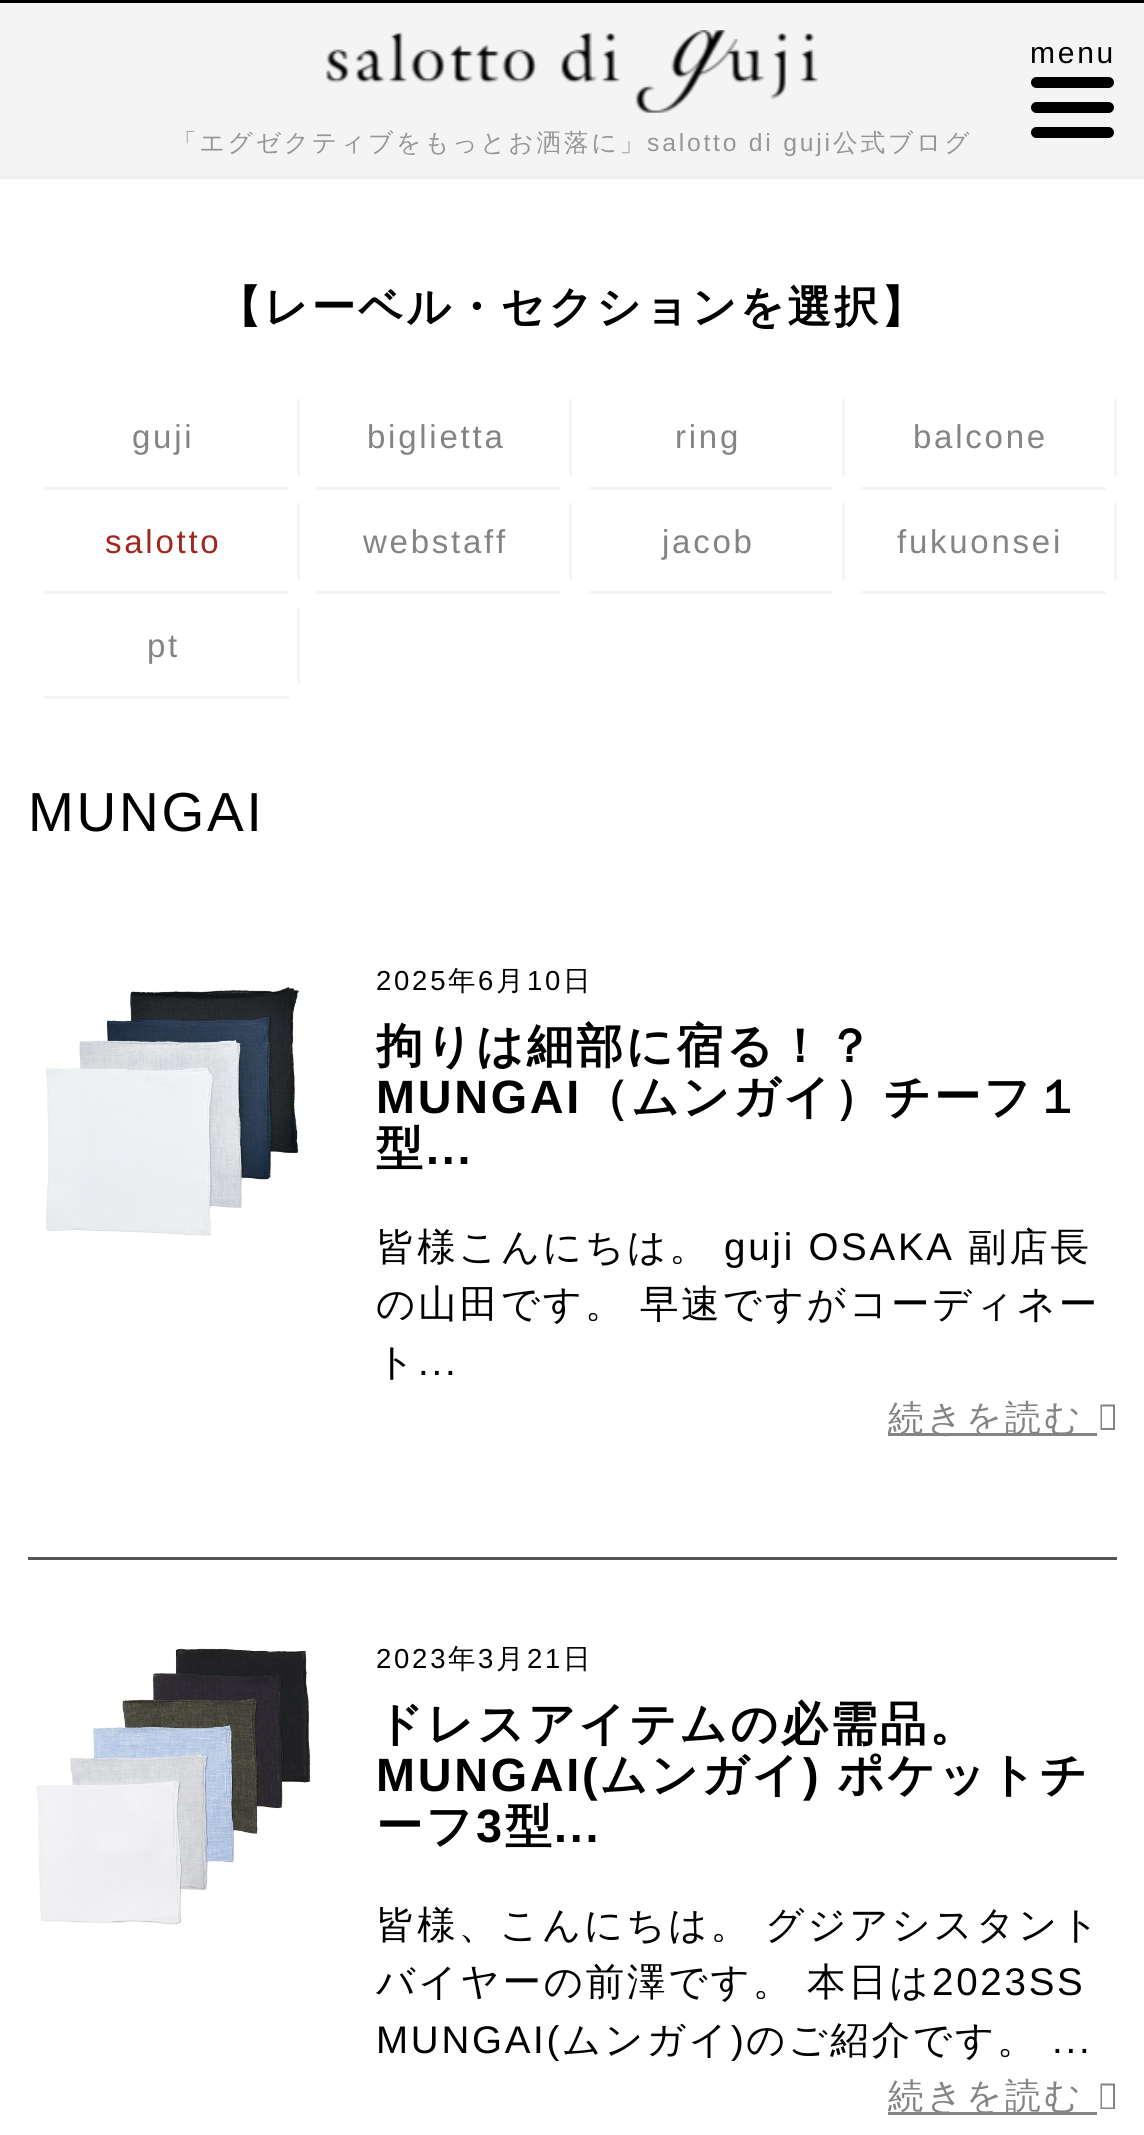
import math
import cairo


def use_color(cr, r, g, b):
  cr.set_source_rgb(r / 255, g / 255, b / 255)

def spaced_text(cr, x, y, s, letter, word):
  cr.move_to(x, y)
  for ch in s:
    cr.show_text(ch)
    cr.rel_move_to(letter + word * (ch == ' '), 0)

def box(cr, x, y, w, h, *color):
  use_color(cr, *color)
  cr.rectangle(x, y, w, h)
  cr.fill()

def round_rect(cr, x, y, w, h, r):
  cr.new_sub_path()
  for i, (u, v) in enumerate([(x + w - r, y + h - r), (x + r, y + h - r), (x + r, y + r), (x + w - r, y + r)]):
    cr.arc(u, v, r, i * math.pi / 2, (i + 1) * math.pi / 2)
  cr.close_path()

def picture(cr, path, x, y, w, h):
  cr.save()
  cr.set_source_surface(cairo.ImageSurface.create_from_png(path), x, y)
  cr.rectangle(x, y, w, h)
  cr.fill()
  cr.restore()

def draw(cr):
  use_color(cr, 255, 255, 255)
  cr.paint()
  box(cr, 0, 0, 1144, 3, 0, 0, 0)
  box(cr, 0, 176, 1144, 3, 239, 239, 239)
  box(cr, 0, 3, 1144, 173, 244, 244, 244)
  picture(cr, "img_01.png", 326, 30, 492, 83)
  use_color(cr, 0, 0, 0)
  round_rect(cr, 1031, 77, 83, 11, 5.5)
  cr.fill()
  round_rect(cr, 1031, 102, 83, 11, 5.5)
  cr.fill()
  round_rect(cr, 1031, 127, 83, 11, 5.5)
  cr.fill()
  box(cr, 297, 399, 3, 77, 244, 244, 244)
  box(cr, 44, 487, 245, 3, 244, 244, 244)
  box(cr, 569, 399, 3, 77, 244, 244, 244)
  box(cr, 316, 487, 245, 3, 244, 244, 244)
  box(cr, 842, 399, 3, 77, 244, 244, 244)
  box(cr, 589, 487, 244, 3, 244, 244, 244)
  box(cr, 1114, 399, 3, 77, 244, 244, 244)
  box(cr, 861, 487, 245, 3, 244, 244, 244)
  box(cr, 297, 503, 3, 77, 244, 244, 244)
  box(cr, 44, 591, 245, 3, 244, 244, 244)
  box(cr, 569, 503, 3, 77, 244, 244, 244)
  box(cr, 316, 591, 245, 3, 244, 244, 244)
  box(cr, 842, 503, 3, 77, 244, 244, 244)
  box(cr, 589, 591, 244, 3, 244, 244, 244)
  box(cr, 1114, 503, 3, 77, 244, 244, 244)
  box(cr, 861, 591, 245, 3, 244, 244, 244)
  box(cr, 297, 608, 3, 77, 244, 244, 244)
  box(cr, 44, 696, 245, 3, 244, 244, 244)
  box(cr, 28, 1557, 1089, 3, 85, 85, 85)
  picture(cr, "img_02.png", 45, 987, 254, 249)
  box(cr, 888, 1433, 209, 3, 132, 132, 132)
  cr.new_path()
  cr.move_to(1100.5, 1430)
  cr.line_to(1100.5, 1404.5)
  cr.line_to(1115, 1404.5)
  cr.line_to(1115, 1430)
  cr.close_path()
  cr.move_to(1102, 1428)
  cr.line_to(1113, 1428)
  cr.line_to(1113, 1406.5)
  cr.line_to(1102, 1406.5)
  cr.close_path()
  cr.fill()
  picture(cr, "img_03.png", 36, 1648, 275, 277)
  box(cr, 888, 2112, 209, 3, 132, 132, 132)
  cr.new_path()
  cr.move_to(1100.5, 2109)
  cr.line_to(1100.5, 2083.5)
  cr.line_to(1115, 2083.5)
  cr.line_to(1115, 2109)
  cr.close_path()
  cr.move_to(1102, 2107.5)
  cr.line_to(1113, 2107.5)
  cr.line_to(1113, 2085.5)
  cr.line_to(1102, 2085.5)
  cr.close_path()
  cr.fill()
  cr.select_font_face("Liberation Sans")
  cr.set_font_size(30)
  use_color(cr, 0, 0, 0)
  spaced_text(cr, 1030, 63, "menu", 2.75, 0)
  cr.select_font_face("WenQuanYi Zen Hei Medium")
  cr.set_font_size(24.75)
  use_color(cr, 150, 150, 150)
  spaced_text(cr, 172, 151, "「エグゼクティブをもっとお洒落に」", 2.75, 0)
  cr.select_font_face("Liberation Sans")
  spaced_text(cr, 647, 151, "salotto di guji", 2.75, 0)
  cr.select_font_face("WenQuanYi Zen Hei Medium")
  spaced_text(cr, 833, 151, "公式ブログ", 2.75, 0)
  cr.select_font_face("WenQuanYi Zen Hei", cairo.FONT_SLANT_NORMAL, cairo.FONT_WEIGHT_BOLD)
  cr.set_font_size(44)
  use_color(cr, 0, 0, 0)
  spaced_text(cr, 217, 322, "【レーベル・セクションを選択】", 2.75, 0)
  cr.select_font_face("Liberation Sans")
  cr.set_font_size(33)
  use_color(cr, 132, 132, 132)
  spaced_text(cr, 132, 448, "guji", 2.75, 0)
  spaced_text(cr, 367, 448, "biglietta", 2.75, 0)
  spaced_text(cr, 675, 448, "ring", 2.75, 0)
  spaced_text(cr, 913, 448, "balcone", 2.75, 0)
  use_color(cr, 161, 38, 30)
  spaced_text(cr, 105, 553, "salotto", 2.75, 0)
  use_color(cr, 132, 132, 132)
  spaced_text(cr, 363, 553, "webstaff", 2.75, 0)
  spaced_text(cr, 662, 553, "jacob", 2.75, 0)
  spaced_text(cr, 897, 553, "fukuonsei", 2.75, 0)
  spaced_text(cr, 147, 657, "pt", 2.75, 0)
  cr.set_font_size(55)
  use_color(cr, 0, 0, 0)
  spaced_text(cr, 28, 831, "MUNGAI", 2.75, 0)
  cr.set_font_size(27.5)
  spaced_text(cr, 376, 990, "2025", 2.75, 0)
  cr.select_font_face("WenQuanYi Zen Hei Medium")
  spaced_text(cr, 448, 990, "年", 2.75, 0)
  cr.select_font_face("Liberation Sans")
  spaced_text(cr, 478, 990, "6", 2.75, 0)
  cr.select_font_face("WenQuanYi Zen Hei Medium")
  spaced_text(cr, 496, 990, "月", 2.75, 0)
  cr.select_font_face("Liberation Sans")
  spaced_text(cr, 527, 990, "10", 2.75, 0)
  cr.select_font_face("WenQuanYi Zen Hei Medium")
  spaced_text(cr, 563, 990, "日", 2.75, 0)
  cr.select_font_face("WenQuanYi Zen Hei", cairo.FONT_SLANT_NORMAL, cairo.FONT_WEIGHT_BOLD)
  cr.set_font_size(46.75)
  spaced_text(cr, 376, 1062, "拘りは細部に宿る！？", 2.75, 0)
  cr.select_font_face("Liberation Sans", cairo.FONT_SLANT_NORMAL, cairo.FONT_WEIGHT_BOLD)
  spaced_text(cr, 376, 1113, "MUNGAI", 2.75, 0)
  cr.select_font_face("WenQuanYi Zen Hei", cairo.FONT_SLANT_NORMAL, cairo.FONT_WEIGHT_BOLD)
  spaced_text(cr, 582, 1113, "（ムンガイ）チーフ１", 2.75, 0)
  spaced_text(cr, 376, 1164, "型", 2.75, 0)
  cr.select_font_face("Liberation Sans", cairo.FONT_SLANT_NORMAL, cairo.FONT_WEIGHT_BOLD)
  spaced_text(cr, 426, 1164, "...", 2.75, 0)
  cr.select_font_face("WenQuanYi Zen Hei Medium")
  cr.set_font_size(38.5)
  spaced_text(cr, 376, 1260, "皆様こんにちは。", 2.75, 0)
  cr.select_font_face("Liberation Sans")
  spaced_text(cr, 724, 1260, "guji OSAKA", 2.75, 0)
  cr.select_font_face("WenQuanYi Zen Hei Medium")
  spaced_text(cr, 968, 1260, "副店長", 2.75, 0)
  spaced_text(cr, 376, 1317, "の山田です。", 2.75, 0)
  spaced_text(cr, 640, 1317, "早速ですがコーディネー", 2.75, 0)
  spaced_text(cr, 376, 1375, "ト", 2.75, 0)
  cr.select_font_face("Liberation Sans")
  spaced_text(cr, 418, 1375, "...", 2.75, 0)
  cr.select_font_face("WenQuanYi Zen Hei Medium")
  cr.set_font_size(35.75)
  use_color(cr, 132, 132, 132)
  spaced_text(cr, 888, 1430, "続きを読む", 2.75, 0)
  cr.select_font_face("Liberation Sans")
  cr.set_font_size(27.5)
  use_color(cr, 0, 0, 0)
  spaced_text(cr, 376, 1668, "2023", 2.75, 0)
  cr.select_font_face("WenQuanYi Zen Hei Medium")
  spaced_text(cr, 448, 1668, "年", 2.75, 0)
  cr.select_font_face("Liberation Sans")
  spaced_text(cr, 478, 1668, "3", 2.75, 0)
  cr.select_font_face("WenQuanYi Zen Hei Medium")
  spaced_text(cr, 496, 1668, "月", 2.75, 0)
  cr.select_font_face("Liberation Sans")
  spaced_text(cr, 527, 1668, "21", 2.75, 0)
  cr.select_font_face("WenQuanYi Zen Hei Medium")
  spaced_text(cr, 563, 1668, "日", 2.75, 0)
  cr.select_font_face("WenQuanYi Zen Hei", cairo.FONT_SLANT_NORMAL, cairo.FONT_WEIGHT_BOLD)
  cr.set_font_size(46.75)
  spaced_text(cr, 376, 1740, "ドレスアイテムの必需品。", 2.75, 0)
  cr.select_font_face("Liberation Sans", cairo.FONT_SLANT_NORMAL, cairo.FONT_WEIGHT_BOLD)
  spaced_text(cr, 376, 1791, "MUNGAI(", 2.75, 0)
  cr.select_font_face("WenQuanYi Zen Hei", cairo.FONT_SLANT_NORMAL, cairo.FONT_WEIGHT_BOLD)
  spaced_text(cr, 600, 1791, "ムンガイ", 2.75, 0)
  cr.select_font_face("Liberation Sans", cairo.FONT_SLANT_NORMAL, cairo.FONT_WEIGHT_BOLD)
  spaced_text(cr, 803, 1791, ")", 2.75, 0)
  cr.select_font_face("WenQuanYi Zen Hei", cairo.FONT_SLANT_NORMAL, cairo.FONT_WEIGHT_BOLD)
  spaced_text(cr, 837, 1791, "ポケットチ", 2.75, 0)
  spaced_text(cr, 376, 1842, "ーフ", 2.75, 0)
  cr.select_font_face("Liberation Sans", cairo.FONT_SLANT_NORMAL, cairo.FONT_WEIGHT_BOLD)
  spaced_text(cr, 476, 1842, "3", 2.75, 0)
  cr.select_font_face("WenQuanYi Zen Hei", cairo.FONT_SLANT_NORMAL, cairo.FONT_WEIGHT_BOLD)
  spaced_text(cr, 505, 1842, "型", 2.75, 0)
  cr.select_font_face("Liberation Sans", cairo.FONT_SLANT_NORMAL, cairo.FONT_WEIGHT_BOLD)
  spaced_text(cr, 554, 1842, "...", 2.75, 0)
  cr.select_font_face("WenQuanYi Zen Hei Medium")
  cr.set_font_size(38.5)
  spaced_text(cr, 376, 1938, "皆様、こんにちは。", 2.75, 0)
  spaced_text(cr, 765, 1938, "グジアシスタント", 2.75, 0)
  spaced_text(cr, 376, 1995, "バイヤーの前澤です。", 2.75, 0)
  spaced_text(cr, 807, 1995, "本日は", 2.75, 0)
  cr.select_font_face("Liberation Sans")
  spaced_text(cr, 932, 1995, "2023SS", 2.75, 0)
  spaced_text(cr, 376, 2053, "MUNGAI(", 2.75, 0)
  cr.select_font_face("WenQuanYi Zen Hei Medium")
  spaced_text(cr, 562, 2053, "ムンガイ", 2.75, 0)
  cr.select_font_face("Liberation Sans")
  spaced_text(cr, 731, 2053, ")", 2.75, 0)
  cr.select_font_face("WenQuanYi Zen Hei Medium")
  spaced_text(cr, 746, 2053, "のご紹介です。", 2.75, 0)
  cr.select_font_face("Liberation Sans")
  spaced_text(cr, 1052, 2053, "...", 2.75, 0)
  cr.select_font_face("WenQuanYi Zen Hei Medium")
  cr.set_font_size(35.75)
  use_color(cr, 132, 132, 132)
  spaced_text(cr, 888, 2108, "続きを読む", 2.75, 0)


surface = cairo.ImageSurface(cairo.FORMAT_RGB24, 1144, 2135)
cr = cairo.Context(surface)
options = cairo.FontOptions()
options.set_hint_metrics(cairo.HINT_METRICS_OFF)
options.set_hint_style(cairo.HINT_STYLE_NONE)
cr.set_font_options(options)
cr.set_miter_limit(4)
draw(cr)
surface.write_to_png("out.png")
